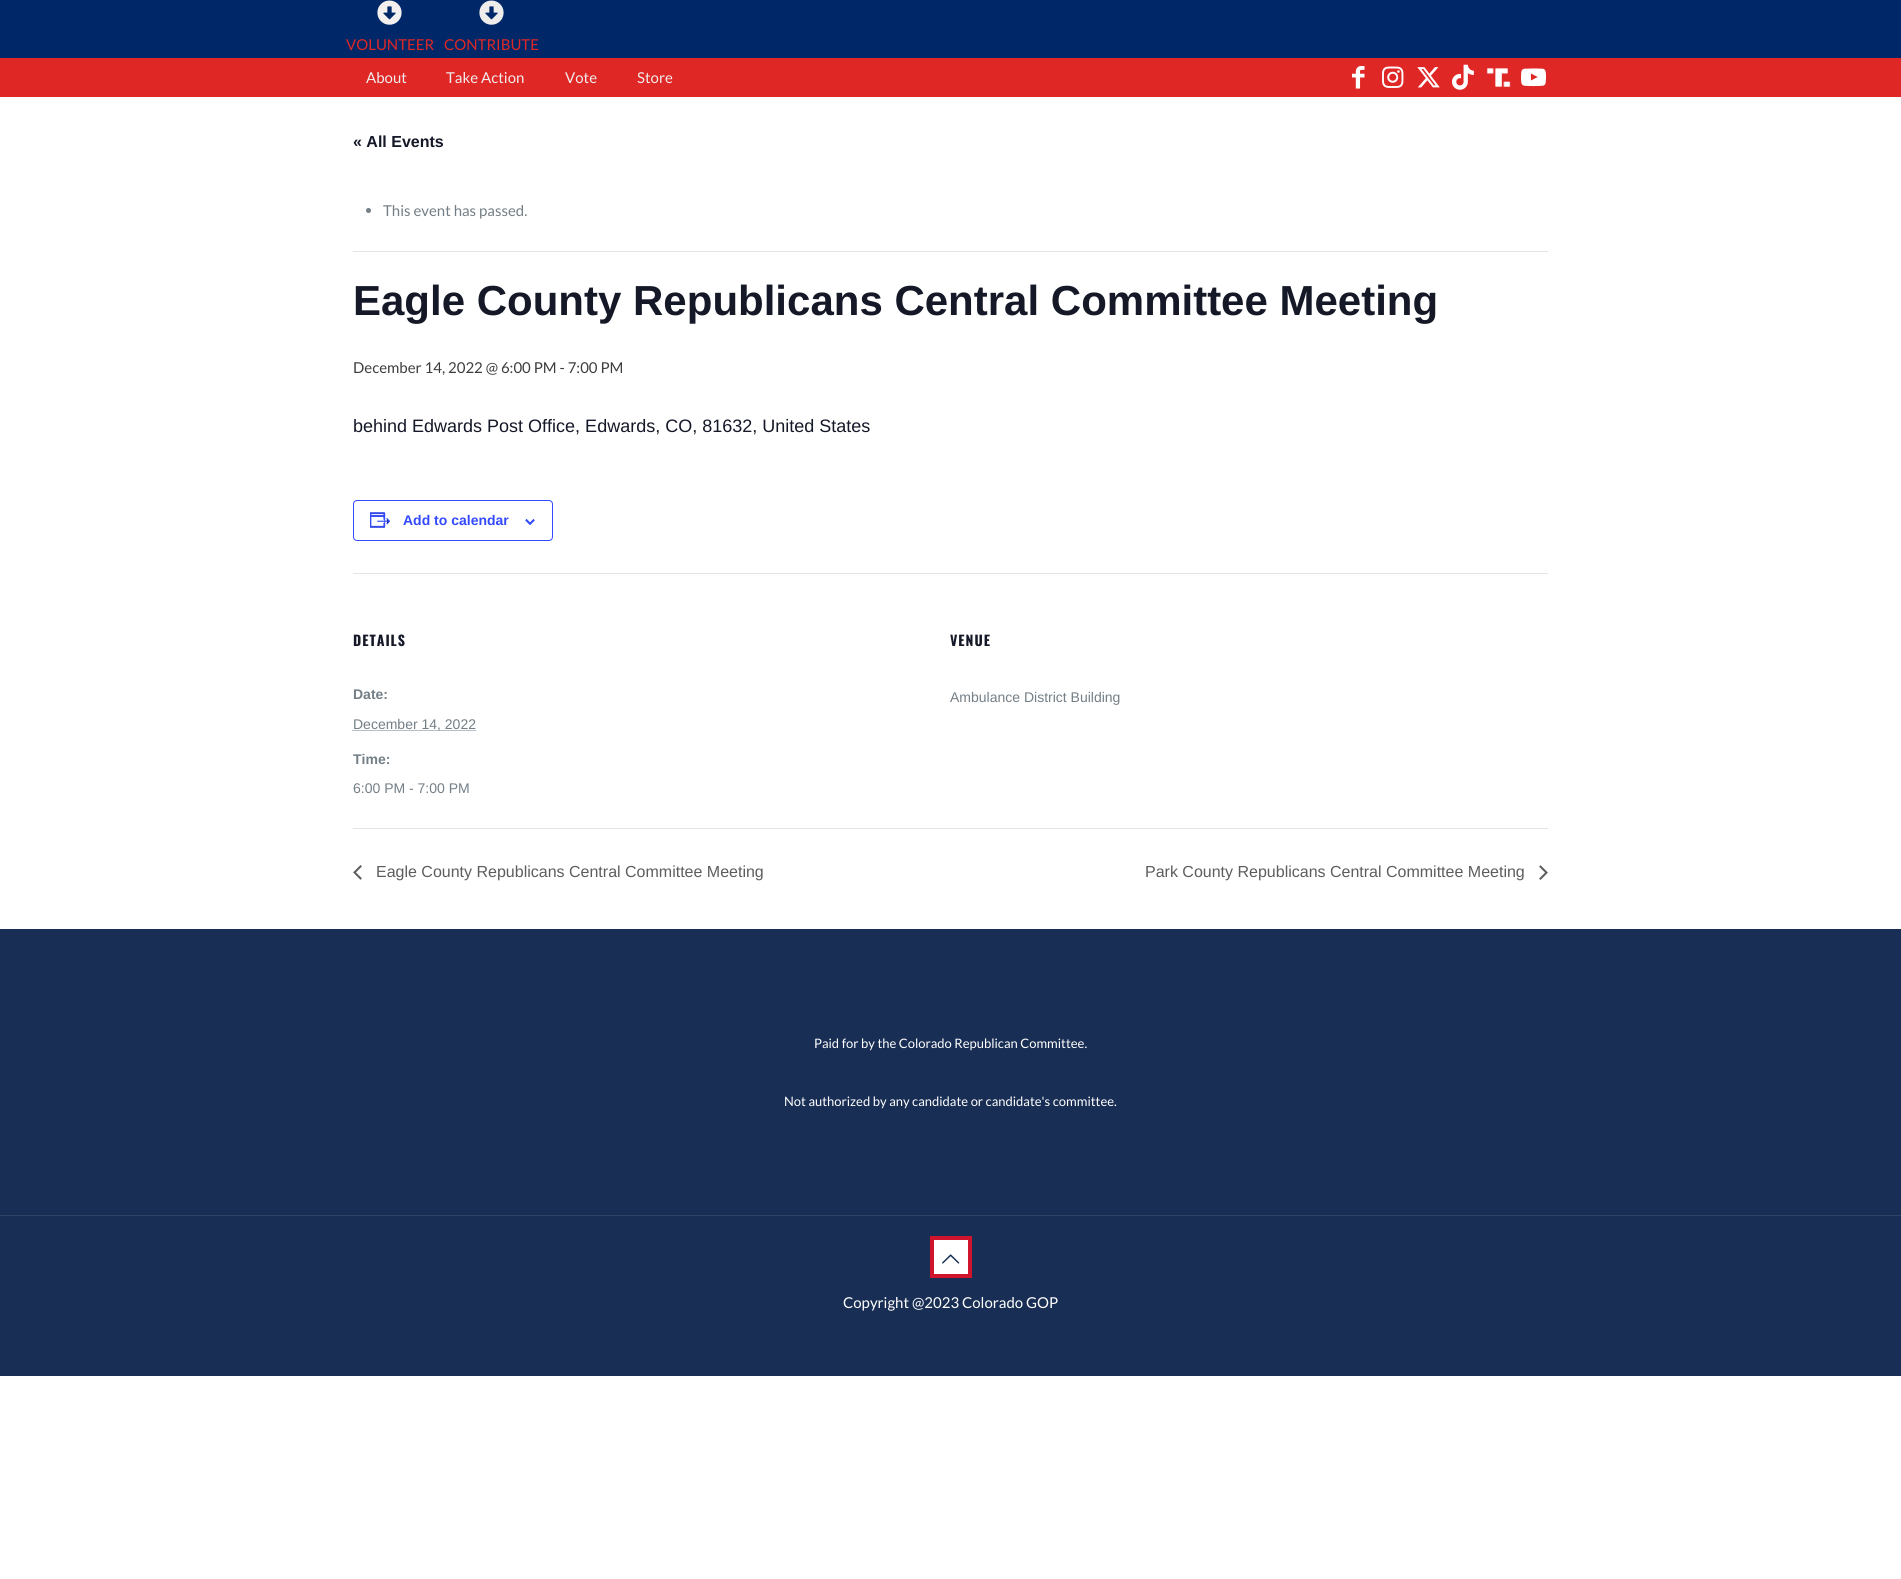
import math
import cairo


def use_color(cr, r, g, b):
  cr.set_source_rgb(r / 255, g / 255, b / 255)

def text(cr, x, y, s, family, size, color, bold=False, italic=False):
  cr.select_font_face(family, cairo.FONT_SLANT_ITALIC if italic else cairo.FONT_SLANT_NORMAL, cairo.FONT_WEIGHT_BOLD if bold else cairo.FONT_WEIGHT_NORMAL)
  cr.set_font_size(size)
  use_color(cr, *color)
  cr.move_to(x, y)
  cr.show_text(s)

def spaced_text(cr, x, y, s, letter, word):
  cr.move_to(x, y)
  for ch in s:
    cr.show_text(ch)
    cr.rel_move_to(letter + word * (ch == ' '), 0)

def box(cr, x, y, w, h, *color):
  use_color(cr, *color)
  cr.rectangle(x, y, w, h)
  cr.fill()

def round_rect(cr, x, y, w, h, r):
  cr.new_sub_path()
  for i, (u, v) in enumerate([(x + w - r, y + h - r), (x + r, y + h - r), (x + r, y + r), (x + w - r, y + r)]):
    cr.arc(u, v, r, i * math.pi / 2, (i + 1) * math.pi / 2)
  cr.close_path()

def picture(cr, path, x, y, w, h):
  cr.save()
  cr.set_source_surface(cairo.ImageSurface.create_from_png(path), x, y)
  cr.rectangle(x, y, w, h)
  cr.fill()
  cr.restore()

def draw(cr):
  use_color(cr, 255, 255, 255)
  cr.paint()
  box(cr, 0, 0, 1901, 58, 0, 40, 104)
  picture(cr, "img_01.png", 377, 0, 25, 25)
  picture(cr, "img_02.png", 479, 0, 25, 25)
  box(cr, 0, 58, 1901, 39, 223, 39, 38)
  picture(cr, "img_03.png", 1352, 66, 13, 23)
  picture(cr, "img_04.png", 1382, 66, 22, 22)
  picture(cr, "img_05.png", 1417, 67, 23, 21)
  picture(cr, "img_06.png", 1452, 64, 22, 26)
  picture(cr, "img_07.png", 1486, 68, 25, 19)
  picture(cr, "img_08.png", 1521, 68, 25, 19)
  box(cr, 353, 251, 1195, 1, 228, 228, 228)
  use_color(cr, 115, 126, 134)
  cr.arc(368.5, 210.5, 2.5, 0, 2 * math.pi)
  cr.fill()
  round_rect(cr, 353.5, 500.5, 199, 40, 3.5)
  use_color(cr, 51, 74, 255)
  cr.set_line_width(1)
  cr.stroke()
  picture(cr, "img_09.png", 370, 512, 21, 16)
  picture(cr, "img_10.png", 525, 519, 10, 6)
  box(cr, 353, 573, 1195, 1, 228, 228, 228)
  cr.new_path()
  cr.move_to(352.5, 730.5)
  cr.line_to(475.5, 730.5)
  use_color(cr, 115, 126, 134)
  cr.set_dash([1, 1])
  cr.stroke()
  box(cr, 353, 828, 1195, 1, 228, 228, 228)
  picture(cr, "img_11.png", 353, 865, 9, 15)
  picture(cr, "img_12.png", 1539, 865, 9, 15)
  box(cr, 0, 929, 1901, 447, 24, 46, 84)
  box(cr, 0, 1215, 1901, 1, 47, 67, 101)
  use_color(cr, 255, 255, 255)
  cr.rectangle(932, 1238, 38, 38)
  cr.fill_preserve()
  use_color(cr, 207, 20, 43)
  cr.set_line_width(4)
  cr.set_dash([])
  cr.stroke()
  picture(cr, "img_13.png", 942, 1254, 18, 10)
  text(cr, 346, 50, "VOLUNTEER", "Lato", 15, (223, 39, 38))
  text(cr, 444, 50, "CONTRIBUTE", "Lato", 15, (223, 39, 38))
  text(cr, 366, 83, "About", "Lato", 15, (241, 236, 236))
  text(cr, 446, 83, "Take Action", "Lato", 15, (241, 236, 236))
  text(cr, 565, 83, "Vote", "Lato", 15, (241, 236, 236))
  text(cr, 637, 83, "Store", "Lato", 15, (241, 236, 236))
  text(cr, 353, 147, "« All Events", "Liberation Sans", 16, (20, 24, 39), bold=True)
  text(cr, 383, 216, "This event has passed.", "Lato", 15, (115, 126, 134))
  text(cr, 353, 315, "Eagle County Republicans Central Committee Meeting", "Liberation Sans", 42, (20, 24, 39), bold=True)
  text(cr, 353, 373, "December 14, 2022 @ 6:00 PM - 7:00 PM", "Lato", 15, (61, 61, 61))
  text(cr, 353, 432, "behind Edwards Post Office, Edwards, CO, 81632, United States", "Liberation Sans", 18, (20, 24, 39))
  text(cr, 403, 525, "Add to calendar", "Liberation Sans", 14, (51, 74, 255), bold=True)
  cr.select_font_face("Oswald", cairo.FONT_SLANT_NORMAL, cairo.FONT_WEIGHT_BOLD)
  use_color(cr, 20, 24, 39)
  spaced_text(cr, 353, 646, "DETAILS", 1, 0)
  text(cr, 353, 699, "Date:", "Liberation Sans", 14, (115, 126, 134), bold=True)
  text(cr, 353, 729, "December 14, 2022", "Liberation Sans", 14, (115, 126, 134))
  text(cr, 353, 764, "Time:", "Liberation Sans", 14, (115, 126, 134), bold=True)
  text(cr, 353, 793, "6:00 PM - 7:00 PM", "Liberation Sans", 14, (115, 126, 134))
  cr.select_font_face("Oswald", cairo.FONT_SLANT_NORMAL, cairo.FONT_WEIGHT_BOLD)
  use_color(cr, 20, 24, 39)
  spaced_text(cr, 950, 646, "VENUE", 1, 0)
  text(cr, 950, 702, "Ambulance District Building", "Liberation Sans", 14, (115, 126, 134))
  text(cr, 376, 877, "Eagle County Republicans Central Committee Meeting", "Liberation Sans", 16, (93, 93, 93))
  text(cr, 1145, 877, "Park County Republicans Central Committee Meeting", "Liberation Sans", 16, (93, 93, 93))
  text(cr, 814, 1048, "Paid for by the Colorado Republican Committee.", "Lato", 13, (255, 255, 255))
  text(cr, 784, 1106, "Not authorized by any candidate or candidate's committee.", "Lato", 13, (255, 255, 255))
  text(cr, 843, 1308, "Copyright @2023 Colorado GOP", "Lato", 15, (255, 255, 255))


surface = cairo.ImageSurface(cairo.FORMAT_RGB24, 1901, 1579)
cr = cairo.Context(surface)
options = cairo.FontOptions()
options.set_hint_metrics(cairo.HINT_METRICS_OFF)
options.set_hint_style(cairo.HINT_STYLE_NONE)
cr.set_font_options(options)
cr.set_miter_limit(4)
draw(cr)
surface.write_to_png("out.png")
